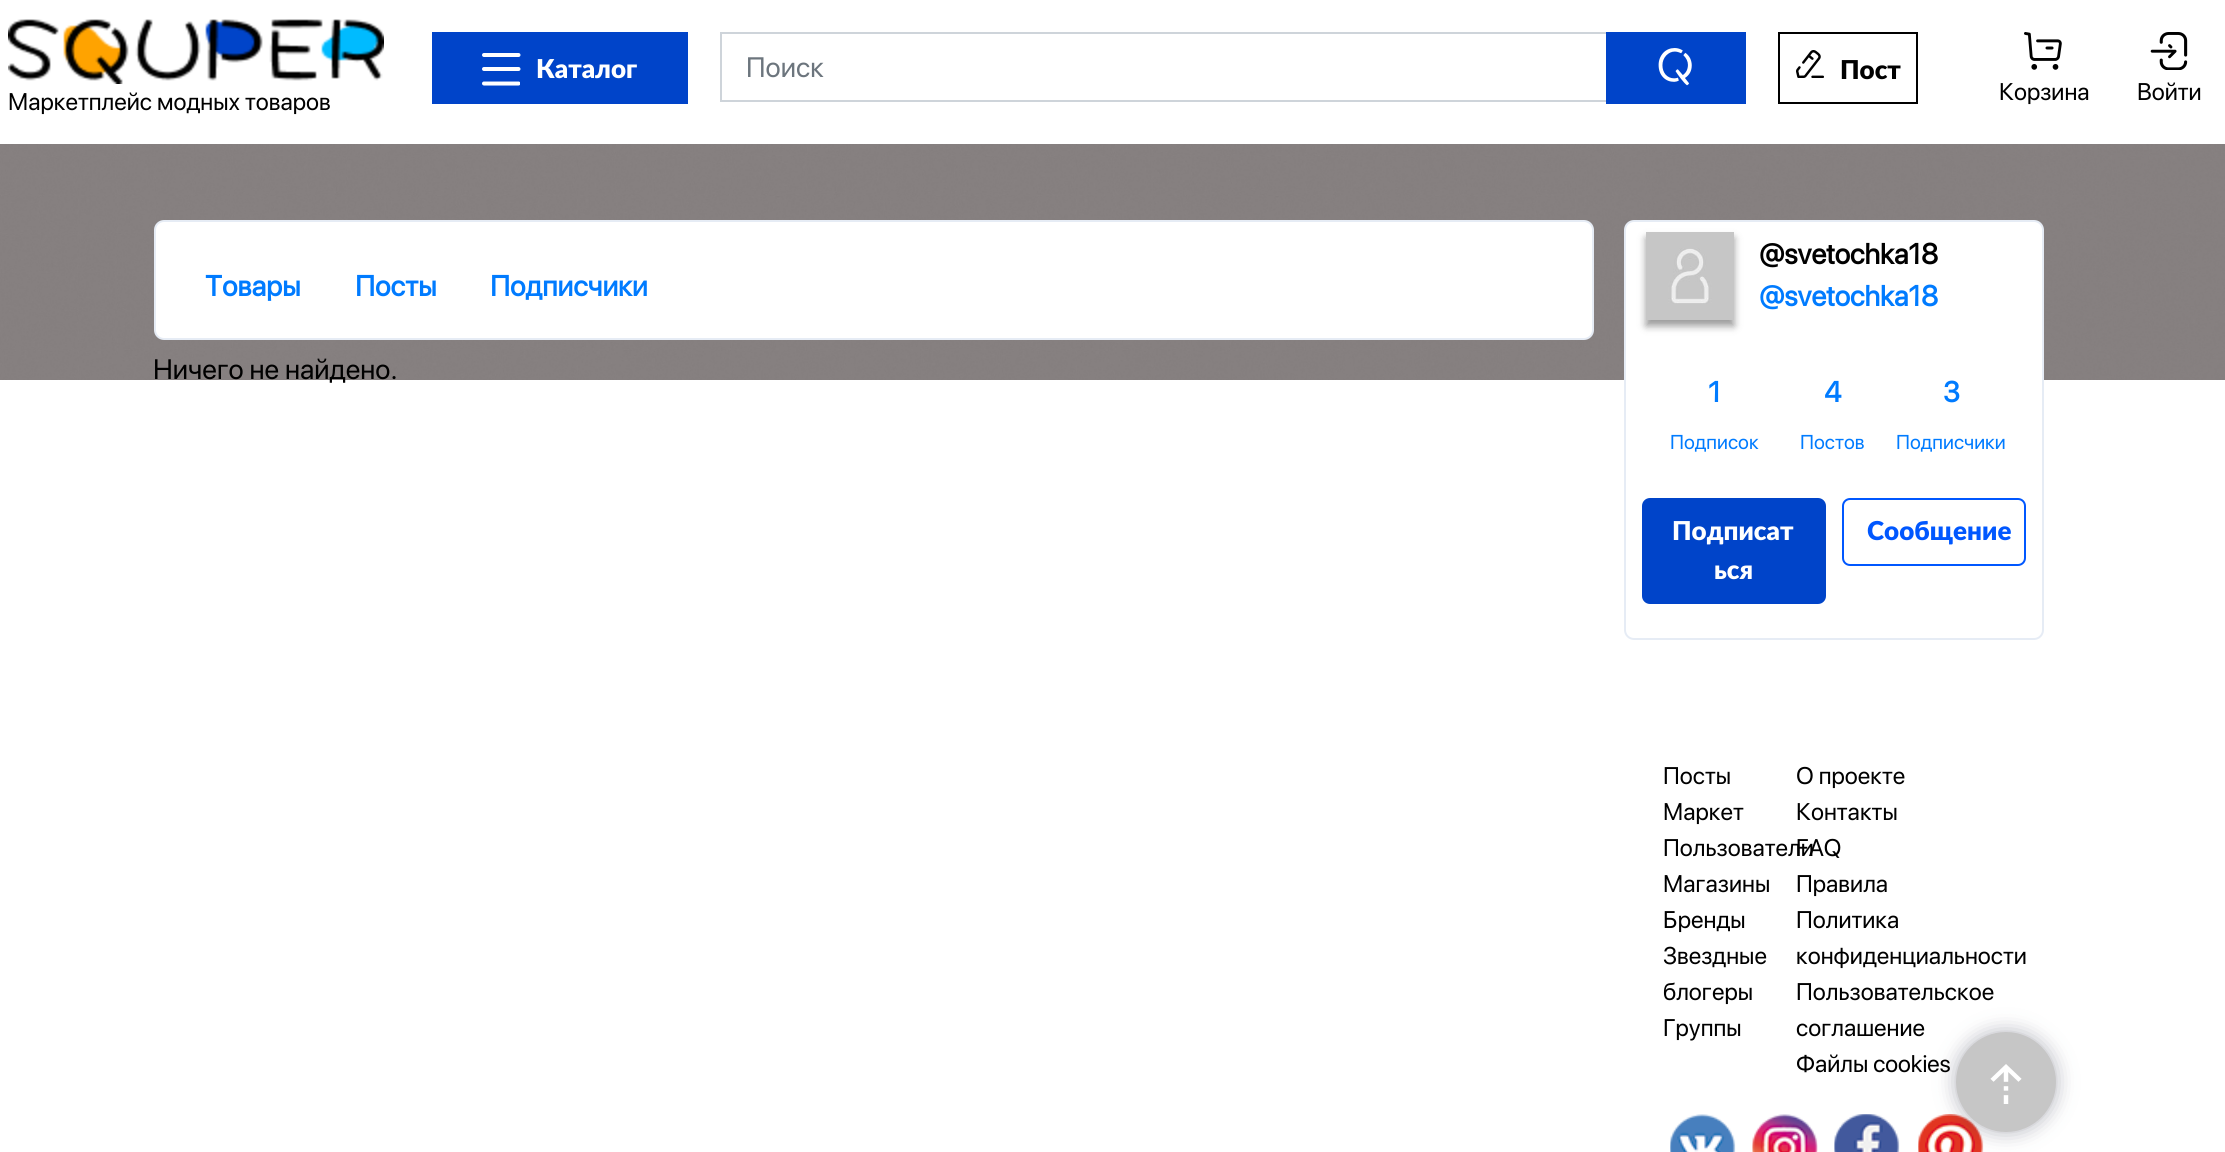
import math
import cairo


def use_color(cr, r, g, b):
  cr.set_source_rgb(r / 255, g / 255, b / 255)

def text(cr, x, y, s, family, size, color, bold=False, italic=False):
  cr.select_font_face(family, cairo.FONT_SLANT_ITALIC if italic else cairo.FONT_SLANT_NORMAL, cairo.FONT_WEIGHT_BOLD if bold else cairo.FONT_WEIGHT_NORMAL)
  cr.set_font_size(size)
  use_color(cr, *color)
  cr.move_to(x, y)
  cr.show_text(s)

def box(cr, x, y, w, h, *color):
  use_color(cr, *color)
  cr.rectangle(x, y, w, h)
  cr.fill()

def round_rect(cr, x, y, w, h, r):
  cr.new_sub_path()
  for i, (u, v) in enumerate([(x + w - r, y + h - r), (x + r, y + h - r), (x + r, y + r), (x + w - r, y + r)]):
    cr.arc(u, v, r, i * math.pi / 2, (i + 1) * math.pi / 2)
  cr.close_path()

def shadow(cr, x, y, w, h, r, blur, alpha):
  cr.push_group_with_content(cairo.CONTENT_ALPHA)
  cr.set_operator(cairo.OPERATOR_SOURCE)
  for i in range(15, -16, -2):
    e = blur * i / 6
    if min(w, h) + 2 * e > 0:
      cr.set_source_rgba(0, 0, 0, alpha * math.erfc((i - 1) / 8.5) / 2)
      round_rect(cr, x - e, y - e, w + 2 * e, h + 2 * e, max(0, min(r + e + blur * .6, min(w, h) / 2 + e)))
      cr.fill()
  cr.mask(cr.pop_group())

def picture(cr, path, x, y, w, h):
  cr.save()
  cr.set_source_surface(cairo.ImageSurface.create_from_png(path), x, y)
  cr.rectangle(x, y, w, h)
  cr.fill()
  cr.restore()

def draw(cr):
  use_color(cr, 255, 255, 255)
  cr.paint()
  picture(cr, "img_01.png", 8, 19, 376, 65)
  box(cr, 432, 32, 256, 72, 0, 68, 201)
  cr.new_path()
  cr.move_to(484, 55)
  cr.line_to(518.5, 55)
  use_color(cr, 255, 255, 255)
  cr.set_line_width(4)
  cr.set_line_cap(cairo.LINE_CAP_ROUND)
  cr.set_line_join(cairo.LINE_JOIN_ROUND)
  cr.stroke()
  cr.save()
  cr.rectangle(482, 50, 38, 38)
  cr.clip()
  cr.new_path()
  cr.move_to(484, 83.5)
  cr.line_to(518.5, 83.5)
  cr.stroke()
  cr.restore()
  cr.new_path()
  cr.move_to(484, 69)
  cr.line_to(518.5, 69)
  cr.stroke()
  cr.rectangle(721, 33, 886, 68)
  use_color(cr, 206, 212, 218)
  cr.set_line_width(2)
  cr.set_line_cap(cairo.LINE_CAP_BUTT)
  cr.set_line_join(cairo.LINE_JOIN_MITER)
  cr.stroke()
  box(cr, 1606, 32, 140, 72, 0, 68, 201)
  picture(cr, "img_02.png", 1658, 48, 34, 38)
  cr.rectangle(1779, 33, 138, 70)
  use_color(cr, 0, 0, 0)
  cr.stroke()
  picture(cr, "img_03.png", 1796, 50, 28, 28)
  picture(cr, "img_04.png", 2024, 32, 38, 38)
  picture(cr, "img_05.png", 2150, 32, 38, 38)
  picture(cr, "img_06.png", 0, 144, 2225, 236)
  use_color(cr, 255, 255, 255)
  round_rect(cr, 155, 221, 1438, 118, 9)
  cr.fill_preserve()
  use_color(cr, 230, 236, 245)
  cr.stroke()
  use_color(cr, 255, 255, 255)
  round_rect(cr, 1625, 221, 418, 418, 9)
  cr.fill_preserve()
  use_color(cr, 230, 236, 245)
  cr.stroke()
  use_color(cr, 0, 0, 0)
  shadow(cr, 1646, 238, 88, 88, 0, 4, 0.4)
  picture(cr, "img_07.png", 1646, 232, 88, 88)
  use_color(cr, 0, 68, 201)
  round_rect(cr, 1643, 499, 182, 104, 7)
  cr.fill_preserve()
  cr.stroke()
  round_rect(cr, 1843, 499, 182, 66, 7)
  use_color(cr, 0, 87, 255)
  cr.stroke()
  picture(cr, "img_08.png", 1670, 1114, 66, 38)
  picture(cr, "img_09.png", 1752, 1114, 66, 38)
  picture(cr, "img_10.png", 1834, 1114, 66, 38)
  picture(cr, "img_11.png", 1918, 1114, 66, 38)
  use_color(cr, 63, 66, 87)
  shadow(cr, 1956, 1032, 100, 100, 50, 10, 0.4)
  use_color(cr, 198, 198, 198)
  cr.arc(2006, 1082, 50, 0, 2 * math.pi)
  cr.fill()
  picture(cr, "img_12.png", 1990, 1064, 32, 40)
  text(cr, 8, 110, "Маркетплейс модных товаров", "SF Pro Display", 24, (0, 0, 0))
  text(cr, 536, 78, "Каталог", "Lato Black", 26, (255, 255, 255))
  text(cr, 746, 77, "Поиск", "SF Pro Display", 28, (108, 117, 125))
  text(cr, 1840, 79, "Пост", "Lato Black", 26, (0, 0, 0))
  text(cr, 1999, 100, "Корзина", "SF Pro Display", 24, (0, 0, 0))
  text(cr, 2137, 100, "Войти", "SF Pro Display", 24, (0, 0, 0))
  text(cr, 205, 296, "Товары", "SF Pro Display", 28.75, (0, 123, 255), bold=True)
  text(cr, 355, 296, "Посты", "SF Pro Display", 28.75, (0, 123, 255), bold=True)
  text(cr, 490, 296, "Подписчики", "SF Pro Display", 28.75, (0, 123, 255), bold=True)
  text(cr, 153, 379, "Ничего не найдено.", "SF Pro Display", 28, (0, 0, 0))
  text(cr, 1759, 264, "@svetochka18", "SF Pro Display", 28.75, (0, 0, 0), bold=True)
  text(cr, 1759, 306, "@svetochka18", "SF Pro Display", 28.75, (0, 123, 255), bold=True)
  text(cr, 1708, 402, "1", "SF Pro Display", 28.75, (0, 123, 255), bold=True)
  text(cr, 1670, 449, "Подписок", "SF Pro Display", 20, (0, 123, 255))
  text(cr, 1824, 402, "4", "SF Pro Display", 28.75, (0, 123, 255), bold=True)
  text(cr, 1800, 449, "Постов", "SF Pro Display", 20, (0, 123, 255))
  text(cr, 1943, 402, "3", "SF Pro Display", 28.75, (0, 123, 255), bold=True)
  text(cr, 1896, 449, "Подписчики", "SF Pro Display", 20, (0, 123, 255))
  text(cr, 1672, 540, "Подписат", "Lato Black", 26, (255, 255, 255))
  text(cr, 1714, 579, "ься", "Lato Black", 26, (255, 255, 255))
  text(cr, 1867, 540, "Сообщение", "Lato Black", 26, (0, 87, 255))
  text(cr, 1663, 784, "Посты", "SF Pro Display", 24, (0, 0, 0))
  text(cr, 1663, 820, "Маркет", "SF Pro Display", 24, (0, 0, 0))
  text(cr, 1663, 856, "Пользователи", "SF Pro Display", 24, (0, 0, 0))
  text(cr, 1663, 892, "Магазины", "SF Pro Display", 24, (0, 0, 0))
  text(cr, 1663, 928, "Бренды", "SF Pro Display", 24, (0, 0, 0))
  text(cr, 1663, 964, "Звездные", "SF Pro Display", 24, (0, 0, 0))
  text(cr, 1663, 1000, "блогеры", "SF Pro Display", 24, (0, 0, 0))
  text(cr, 1663, 1036, "Группы", "SF Pro Display", 24, (0, 0, 0))
  text(cr, 1796, 784, "О проекте", "SF Pro Display", 24, (0, 0, 0))
  text(cr, 1796, 820, "Контакты", "SF Pro Display", 24, (0, 0, 0))
  text(cr, 1796, 856, "FAQ", "SF Pro Display", 24, (0, 0, 0))
  text(cr, 1796, 892, "Правила", "SF Pro Display", 24, (0, 0, 0))
  text(cr, 1796, 928, "Политика", "SF Pro Display", 24, (0, 0, 0))
  text(cr, 1796, 964, "конфиденциальности", "SF Pro Display", 24, (0, 0, 0))
  text(cr, 1796, 1000, "Пользовательское", "SF Pro Display", 24, (0, 0, 0))
  text(cr, 1796, 1036, "соглашение", "SF Pro Display", 24, (0, 0, 0))
  text(cr, 1796, 1072, "Файлы cookies", "SF Pro Display", 24, (0, 0, 0))


surface = cairo.ImageSurface(cairo.FORMAT_RGB24, 2225, 1152)
cr = cairo.Context(surface)
options = cairo.FontOptions()
options.set_hint_metrics(cairo.HINT_METRICS_OFF)
options.set_hint_style(cairo.HINT_STYLE_NONE)
cr.set_font_options(options)
cr.set_miter_limit(4)
draw(cr)
surface.write_to_png("out.png")
